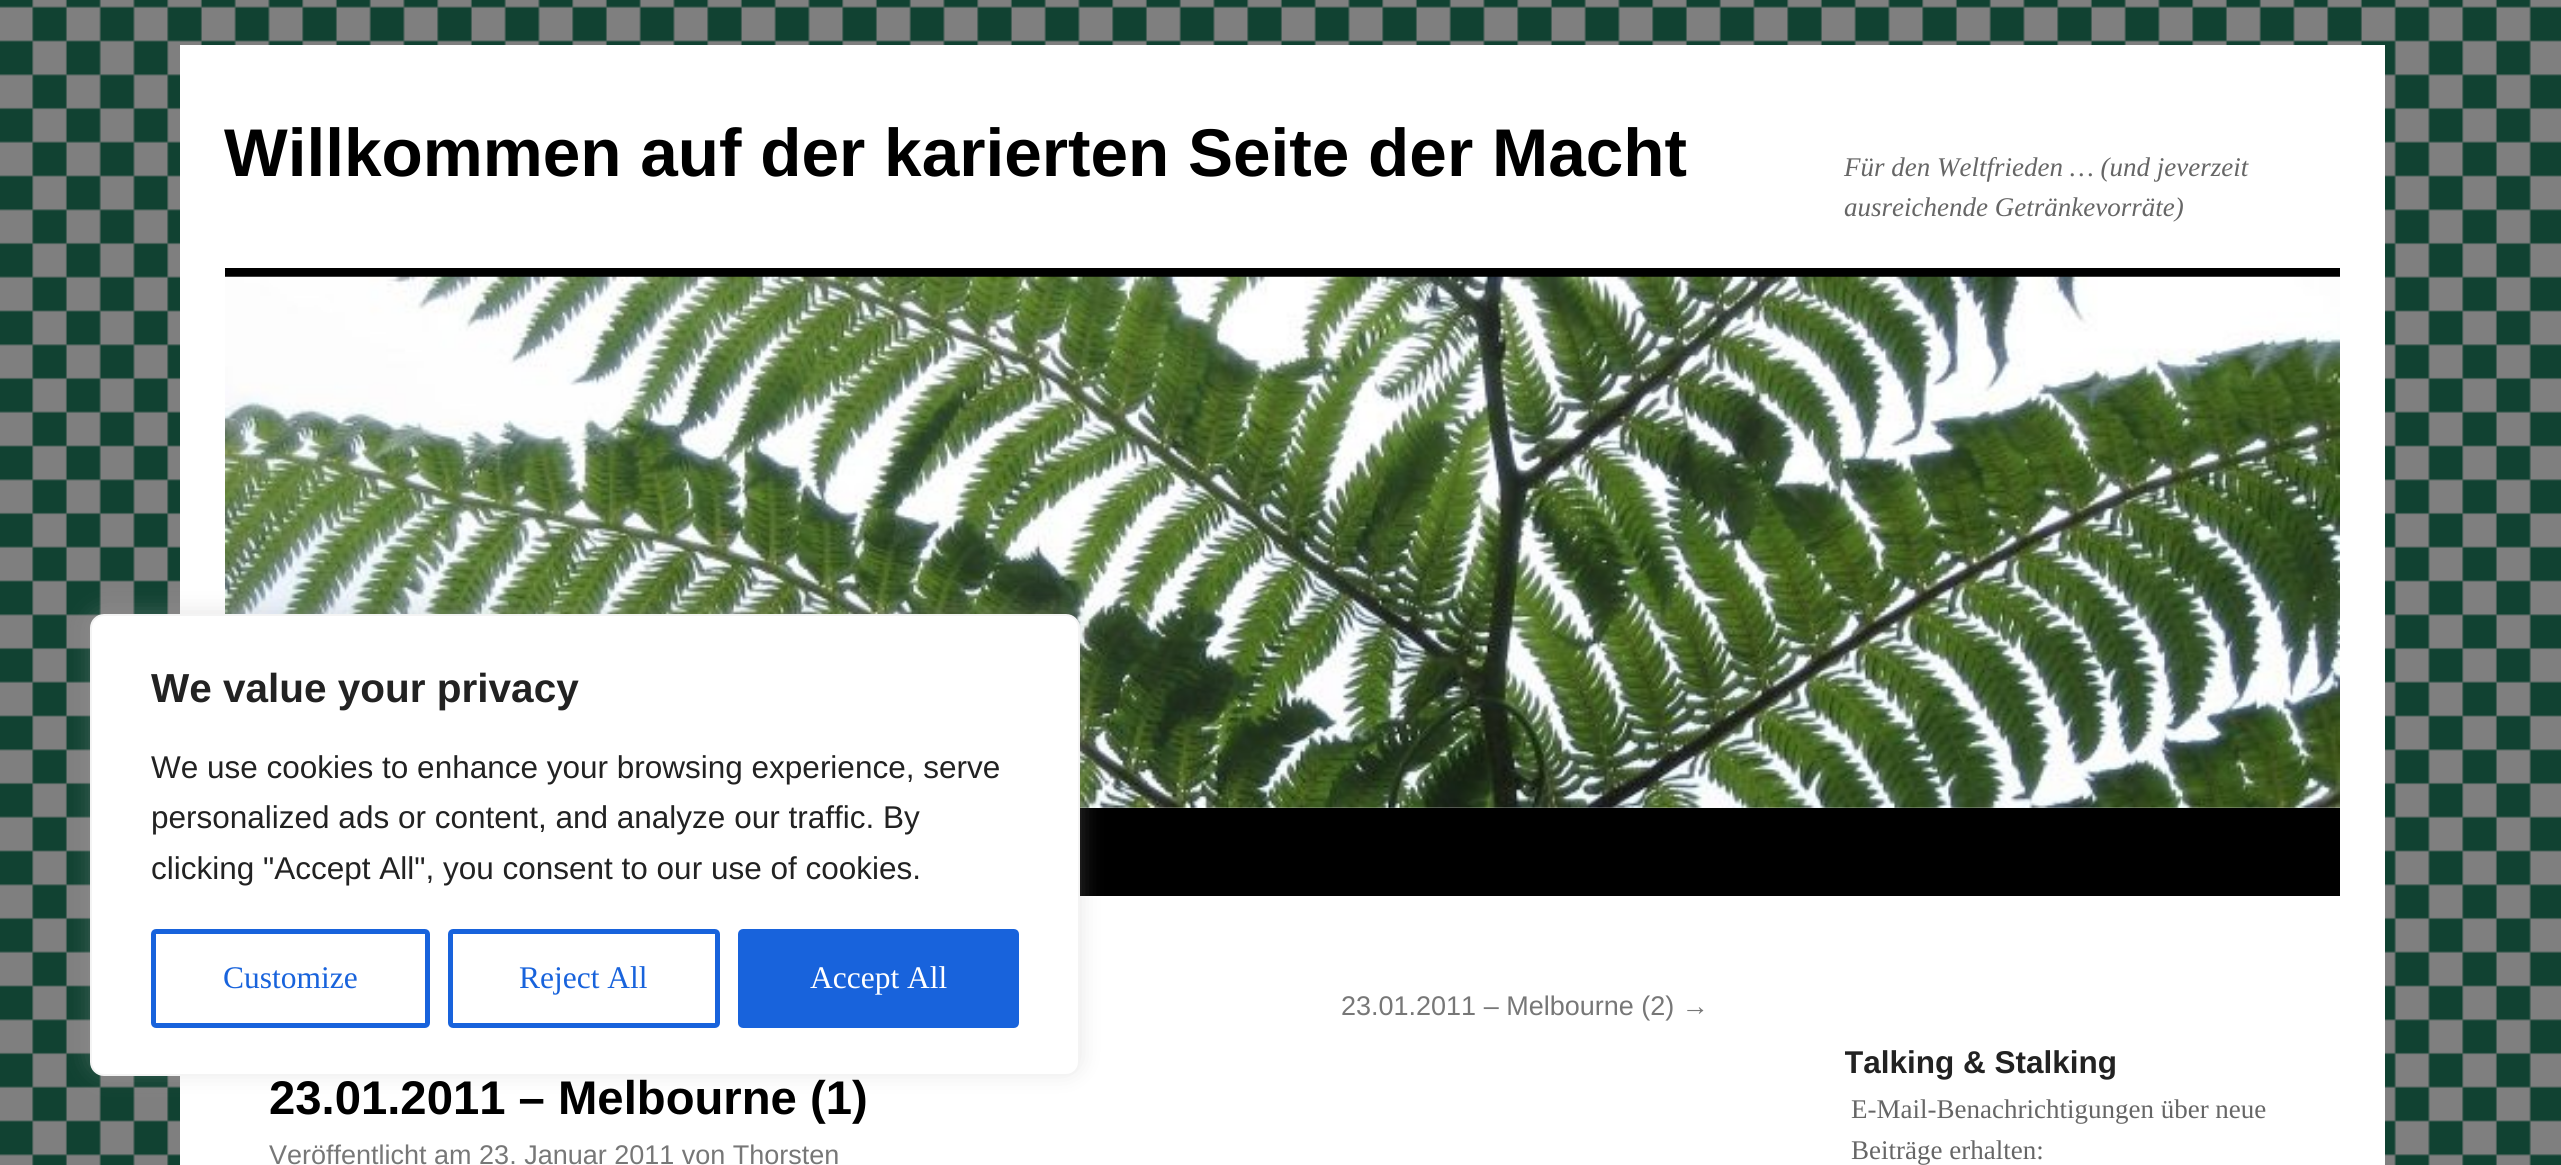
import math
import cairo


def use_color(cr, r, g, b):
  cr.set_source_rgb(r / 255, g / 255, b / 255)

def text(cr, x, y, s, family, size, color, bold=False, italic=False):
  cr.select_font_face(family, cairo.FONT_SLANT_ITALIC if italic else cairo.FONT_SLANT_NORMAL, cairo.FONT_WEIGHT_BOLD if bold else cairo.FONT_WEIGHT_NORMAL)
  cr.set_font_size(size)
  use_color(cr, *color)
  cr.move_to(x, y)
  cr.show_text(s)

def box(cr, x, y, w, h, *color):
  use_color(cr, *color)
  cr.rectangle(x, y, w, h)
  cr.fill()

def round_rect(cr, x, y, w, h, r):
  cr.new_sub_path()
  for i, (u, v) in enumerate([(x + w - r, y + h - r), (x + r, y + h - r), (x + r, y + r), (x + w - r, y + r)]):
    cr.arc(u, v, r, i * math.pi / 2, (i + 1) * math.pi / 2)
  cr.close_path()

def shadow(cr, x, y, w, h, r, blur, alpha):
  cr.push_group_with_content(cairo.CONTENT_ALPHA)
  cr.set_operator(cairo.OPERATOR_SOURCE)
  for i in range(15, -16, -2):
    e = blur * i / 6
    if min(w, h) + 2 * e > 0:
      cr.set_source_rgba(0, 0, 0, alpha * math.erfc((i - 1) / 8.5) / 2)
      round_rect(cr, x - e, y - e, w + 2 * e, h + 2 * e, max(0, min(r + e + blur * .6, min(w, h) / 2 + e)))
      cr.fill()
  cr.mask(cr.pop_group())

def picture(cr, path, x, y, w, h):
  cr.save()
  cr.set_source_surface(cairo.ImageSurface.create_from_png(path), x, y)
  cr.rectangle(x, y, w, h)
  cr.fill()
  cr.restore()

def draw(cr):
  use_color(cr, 255, 255, 255)
  cr.paint()
  picture(cr, "img_01.png", 0, 0, 2561, 1165)
  box(cr, 180, 45, 2205, 1120, 255, 255, 255)
  box(cr, 225, 268, 2115, 9, 0, 0, 0)
  box(cr, 1080, 808, 1260, 88, 0, 0, 0)
  picture(cr, "img_02.png", 225, 276, 2115, 532)
  use_color(cr, 172, 171, 171)
  shadow(cr, 90, 612, 990, 461, 14, 11, 0.3)
  use_color(cr, 255, 255, 255)
  round_rect(cr, 91, 615, 988, 460, 13)
  cr.fill_preserve()
  use_color(cr, 244, 244, 244)
  cr.stroke()
  round_rect(cr, 153.5, 931.5, 274, 94, 2.5)
  use_color(cr, 24, 99, 220)
  cr.set_line_width(5)
  cr.stroke()
  round_rect(cr, 450.5, 931.5, 267, 94, 2.5)
  cr.stroke()
  round_rect(cr, 740.5, 931.5, 276, 94, 2.5)
  cr.fill_preserve()
  cr.stroke()
  text(cr, 224, 176, "Willkommen auf der karierten Seite der Macht", "Liberation Sans", 67.5, (0, 0, 0), bold=True)
  text(cr, 1844, 176, "Für den Weltfrieden … (und jeverzeit", "Liberation Serif", 27, (102, 102, 102), italic=True)
  text(cr, 1844, 216, "ausreichende Getränkevorräte)", "Liberation Serif", 27, (102, 102, 102), italic=True)
  text(cr, 1341, 1015, "23.01.2011 – Melbourne (2) →", "Liberation Sans", 27, (119, 119, 119))
  text(cr, 269, 1114, "23.01.2011 – Melbourne (1)", "Liberation Sans", 47.25, (0, 0, 0), bold=True)
  text(cr, 269, 1164, "Veröffentlicht am 23. Januar 2011 von Thorsten", "Liberation Sans", 27, (119, 119, 119))
  cr.save()
  cr.rectangle(1845, 986, 495, 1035)
  cr.clip()
  text(cr, 1844, 1073, "Talking & Stalking", "Liberation Sans", 31.5, (34, 34, 34), bold=True)
  cr.restore()
  text(cr, 1851, 1118, "E-Mail-Benachrichtigungen über neue", "Liberation Serif", 27, (102, 102, 102))
  text(cr, 1851, 1159, "Beiträge erhalten:", "Liberation Serif", 27, (102, 102, 102))
  text(cr, 151, 702, "We value your privacy", "Liberation Sans", 40.5, (34, 34, 34), bold=True)
  text(cr, 151, 778, "We use cookies to enhance your browsing experience, serve", "Liberation Sans", 31.5, (34, 34, 34))
  text(cr, 151, 828, "personalized ads or content, and analyze our traffic. By", "Liberation Sans", 31.5, (34, 34, 34))
  text(cr, 151, 879, "clicking \"Accept All\", you consent to our use of cookies.", "Liberation Sans", 31.5, (34, 34, 34))
  text(cr, 223, 988, "Customize", "Liberation Serif", 31.5, (24, 99, 220))
  text(cr, 519, 988, "Reject All", "Liberation Serif", 31.5, (24, 99, 220))
  text(cr, 810, 988, "Accept All", "Liberation Serif", 31.5, (255, 255, 255))


surface = cairo.ImageSurface(cairo.FORMAT_RGB24, 2561, 1165)
cr = cairo.Context(surface)
options = cairo.FontOptions()
options.set_hint_metrics(cairo.HINT_METRICS_OFF)
options.set_hint_style(cairo.HINT_STYLE_NONE)
cr.set_font_options(options)
cr.set_miter_limit(4)
draw(cr)
surface.write_to_png("out.png")
